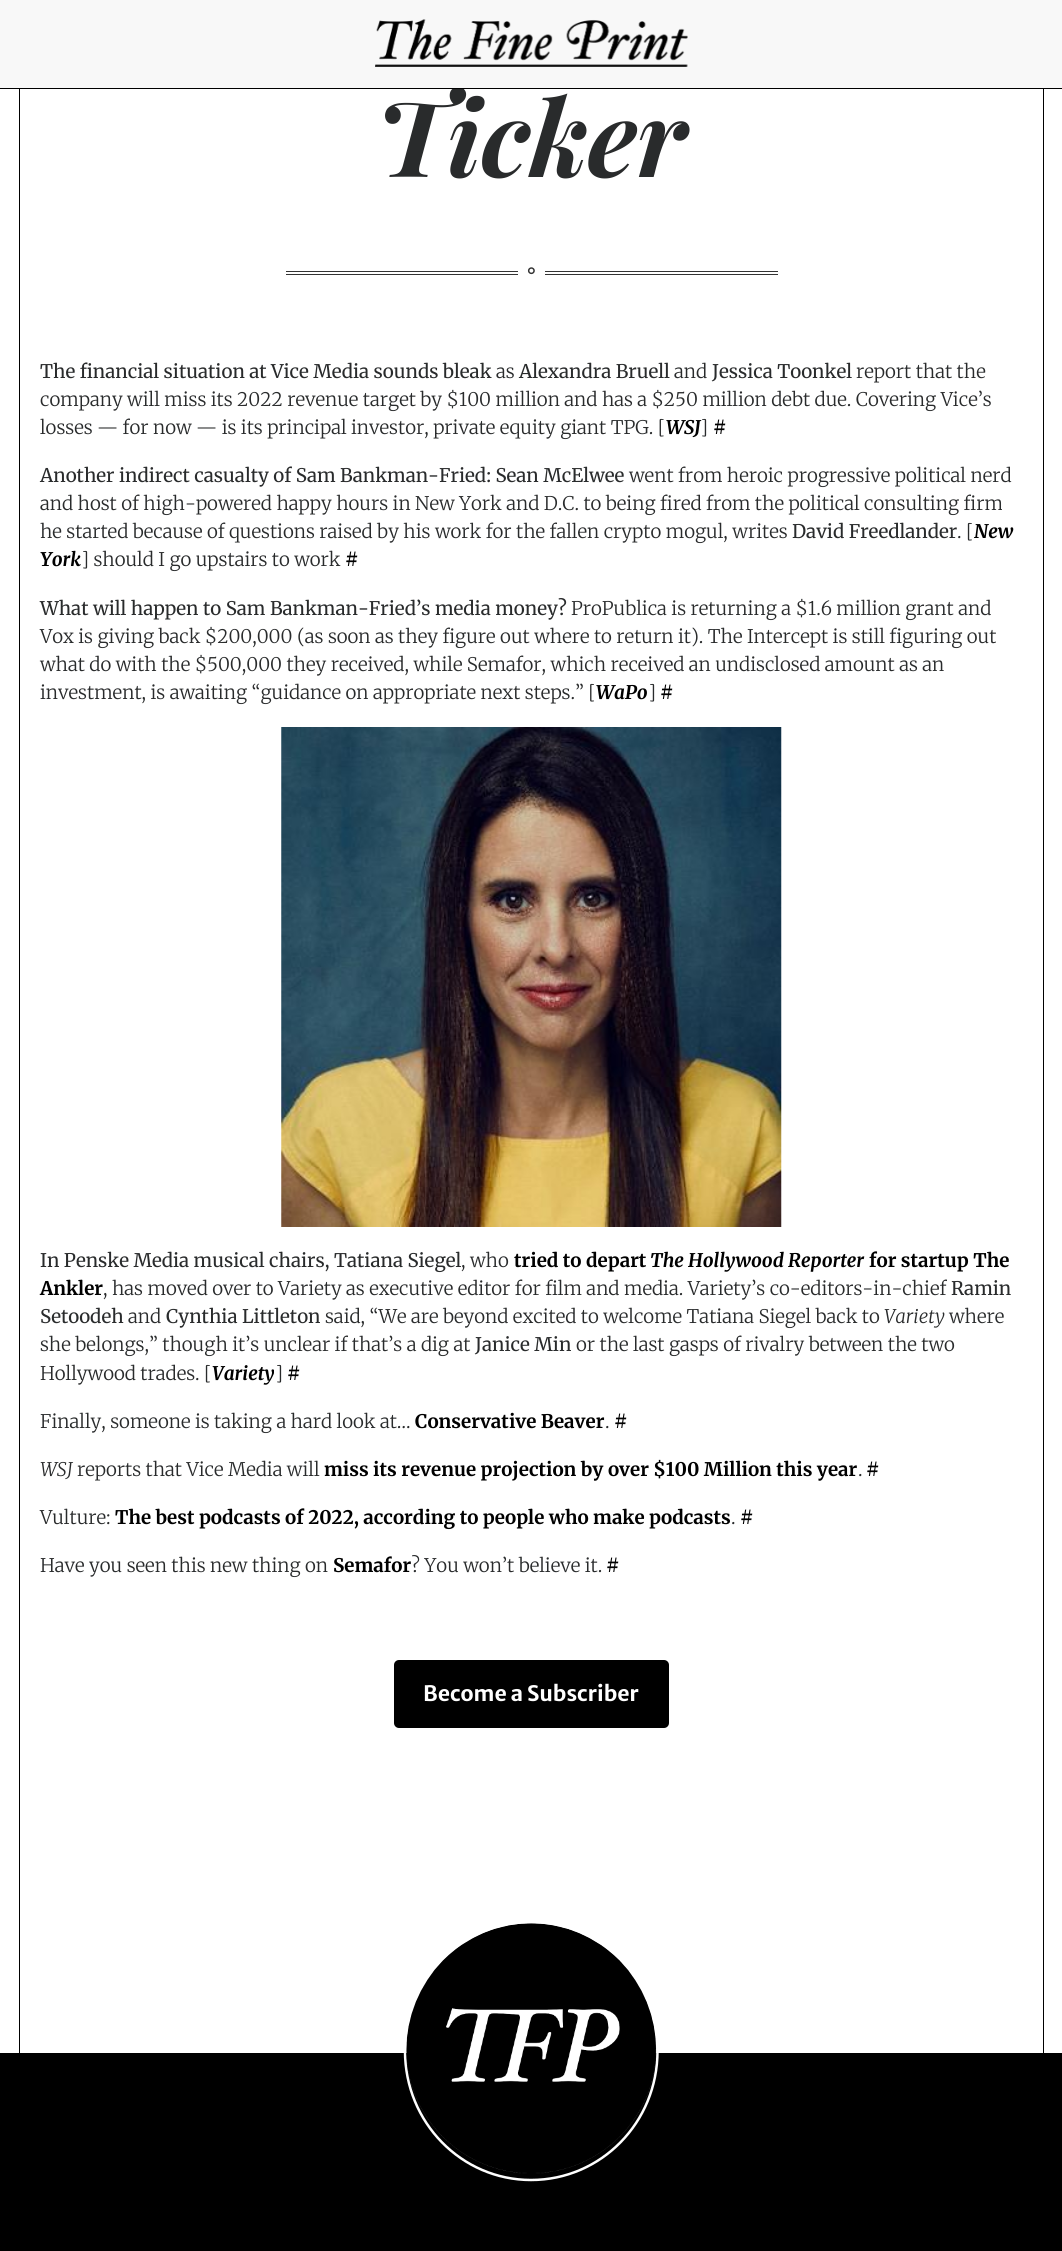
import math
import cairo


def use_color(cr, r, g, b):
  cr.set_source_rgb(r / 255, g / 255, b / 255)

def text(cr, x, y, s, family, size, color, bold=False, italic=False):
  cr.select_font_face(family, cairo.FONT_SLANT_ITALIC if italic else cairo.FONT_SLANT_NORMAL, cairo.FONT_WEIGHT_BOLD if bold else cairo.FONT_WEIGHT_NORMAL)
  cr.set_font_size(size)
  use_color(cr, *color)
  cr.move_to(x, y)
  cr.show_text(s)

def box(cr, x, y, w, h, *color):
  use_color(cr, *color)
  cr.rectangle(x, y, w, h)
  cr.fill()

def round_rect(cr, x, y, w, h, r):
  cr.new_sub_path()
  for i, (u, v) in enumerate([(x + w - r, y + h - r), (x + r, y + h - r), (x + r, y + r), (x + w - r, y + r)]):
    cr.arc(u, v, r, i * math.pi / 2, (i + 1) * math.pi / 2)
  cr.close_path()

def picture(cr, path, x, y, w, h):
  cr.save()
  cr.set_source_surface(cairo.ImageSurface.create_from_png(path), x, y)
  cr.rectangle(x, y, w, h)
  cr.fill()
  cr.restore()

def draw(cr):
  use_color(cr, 0, 0, 0)
  cr.paint()
  box(cr, 0, 89, 1062, 1964, 255, 255, 255)
  box(cr, 1043, 89, 1, 1964, 0, 0, 0)
  box(cr, 19, 89, 1, 1964, 0, 0, 0)
  box(cr, 286, 271, 492, 1, 51, 51, 51)
  box(cr, 286, 274, 492, 1, 51, 51, 51)
  box(cr, 518, 271, 27, 4, 255, 255, 255)
  picture(cr, "img_02.png", 281, 727, 501, 500)
  use_color(cr, 0, 0, 0)
  round_rect(cr, 394, 1660, 275, 68, 5)
  cr.fill()
  cr.new_path()
  cr.move_to(531, 1922.5)
  cr.curve_to(601, 1922.5, 657.5, 1980, 657.5, 2051)
  cr.curve_to(657.5, 2122.5, 601, 2180, 531, 2180)
  cr.curve_to(461.5, 2180, 405, 2122.5, 405, 2051)
  cr.curve_to(405, 1980, 461.5, 1922.5, 531, 1922.5)
  cr.close_path()
  use_color(cr, 255, 255, 255)
  cr.set_line_width(2.5)
  cr.stroke()
  picture(cr, "img_03.png", 406, 1923, 251, 251)
  text(cr, 376, 177, "Ticker", "Playfair Display", 105, (41, 43, 44), bold=True, italic=True)
  box(cr, 0, 0, 1062, 88, 248, 248, 248)
  picture(cr, "img_01.png", 375, 19, 313, 48)
  box(cr, 452, 88, 12, 1, 0, 0, 0)
  text(cr, 523, 278, "⚬", "DejaVu Sans", 20, (51, 51, 51))
  text(cr, 40, 378, "The financial situation at Vice Media sounds bleak", "Merriweather", 18.75, (41, 43, 44))
  text(cr, 496, 378, "as", "Merriweather Light", 18.75, (41, 43, 44))
  text(cr, 519, 378, "Alexandra Bruell", "Merriweather", 18.75, (41, 43, 44))
  text(cr, 674, 378, "and", "Merriweather Light", 18.75, (41, 43, 44))
  text(cr, 712, 378, "Jessica Toonkel", "Merriweather", 18.75, (41, 43, 44))
  text(cr, 856, 378, "report that the", "Merriweather Light", 18.75, (41, 43, 44))
  text(cr, 40, 406, "company will miss its 2022 revenue target by $100 million and has a $250 million debt due. Covering Vice’s", "Merriweather Light", 18.75, (41, 43, 44))
  text(cr, 40, 434, "losses — for now — is its principal investor, private equity giant TPG. [", "Merriweather Light", 18.75, (41, 43, 44))
  text(cr, 666, 434, "WSJ", "Merriweather", 18.75, (0, 0, 0), bold=True, italic=True)
  text(cr, 700, 434, "]", "Merriweather Light", 18.75, (41, 43, 44))
  text(cr, 713, 434, "#", "Merriweather", 18.75, (0, 0, 0), bold=True)
  text(cr, 40, 482, "Another indirect casualty of Sam Bankman-Fried: Sean McElwee", "Merriweather", 18.75, (41, 43, 44))
  text(cr, 629, 482, "went from heroic progressive political nerd", "Merriweather Light", 18.75, (41, 43, 44))
  text(cr, 40, 510, "and host of high-powered happy hours in New York and D.C. to being fired from the political consulting firm", "Merriweather Light", 18.75, (41, 43, 44))
  text(cr, 40, 538, "he started because of questions raised by his work for the fallen crypto mogul, writes", "Merriweather Light", 18.75, (41, 43, 44))
  text(cr, 792, 538, "David Freedlander", "Merriweather", 18.75, (41, 43, 44))
  text(cr, 957, 538, ". [", "Merriweather Light", 18.75, (41, 43, 44))
  text(cr, 974, 538, "New", "Merriweather", 18.75, (0, 0, 0), bold=True, italic=True)
  text(cr, 40, 566, "York", "Merriweather", 18.75, (0, 0, 0), bold=True, italic=True)
  text(cr, 81, 566, "] should I go upstairs to work", "Merriweather Light", 18.75, (41, 43, 44))
  text(cr, 345, 566, "#", "Merriweather", 18.75, (0, 0, 0), bold=True)
  text(cr, 40, 615, "What will happen to Sam Bankman-Fried’s media money?", "Merriweather", 18.75, (41, 43, 44))
  text(cr, 571, 615, "ProPublica is returning a $1.6 million grant and", "Merriweather Light", 18.75, (41, 43, 44))
  text(cr, 40, 643, "Vox is giving back $200,000 (as soon as they figure out where to return it). The Intercept is still figuring out", "Merriweather Light", 18.75, (41, 43, 44))
  text(cr, 40, 671, "what do with the $500,000 they received, while Semafor, which received an undisclosed amount as an", "Merriweather Light", 18.75, (41, 43, 44))
  text(cr, 40, 699, "investment, is awaiting “guidance on appropriate next steps.” [", "Merriweather Light", 18.75, (41, 43, 44))
  text(cr, 596, 699, "WaPo", "Merriweather", 18.75, (0, 0, 0), bold=True, italic=True)
  text(cr, 648, 699, "]", "Merriweather Light", 18.75, (41, 43, 44))
  text(cr, 660, 699, "#", "Merriweather", 18.75, (0, 0, 0), bold=True)
  text(cr, 40, 1267, "In Penske Media musical chairs, Tatiana Siegel", "Merriweather", 18.75, (41, 43, 44))
  text(cr, 461, 1267, ", who", "Merriweather Light", 18.75, (41, 43, 44))
  text(cr, 514, 1267, "tried to depart", "Merriweather", 18.75, (0, 0, 0), bold=True)
  text(cr, 650, 1267, "The Hollywood Reporter", "Merriweather", 18.75, (0, 0, 0), bold=True, italic=True)
  text(cr, 869, 1267, "for startup The", "Merriweather", 18.75, (0, 0, 0), bold=True)
  text(cr, 40, 1295, "Ankler", "Merriweather", 18.75, (0, 0, 0), bold=True)
  text(cr, 103, 1295, ", has moved over to Variety as executive editor for film and media. Variety’s co-editors-in-chief", "Merriweather Light", 18.75, (41, 43, 44))
  text(cr, 951, 1295, "Ramin", "Merriweather", 18.75, (41, 43, 44))
  text(cr, 40, 1323, "Setoodeh", "Merriweather", 18.75, (41, 43, 44))
  text(cr, 128, 1323, "and", "Merriweather Light", 18.75, (41, 43, 44))
  text(cr, 166, 1323, "Cynthia Littleton", "Merriweather", 18.75, (41, 43, 44))
  text(cr, 325, 1323, "said, “We are beyond excited to welcome Tatiana Siegel back to", "Merriweather Light", 18.75, (41, 43, 44))
  text(cr, 884, 1323, "Variety", "Merriweather Light", 18.75, (41, 43, 44), italic=True)
  text(cr, 949, 1323, "where", "Merriweather Light", 18.75, (41, 43, 44))
  text(cr, 40, 1351, "she belongs,” though it’s unclear if that’s a dig at", "Merriweather Light", 18.75, (41, 43, 44))
  text(cr, 475, 1351, "Janice Min", "Merriweather", 18.75, (41, 43, 44))
  text(cr, 576, 1351, "or the last gasps of rivalry between the two", "Merriweather Light", 18.75, (41, 43, 44))
  text(cr, 40, 1380, "Hollywood trades. [", "Merriweather Light", 18.75, (41, 43, 44))
  text(cr, 212, 1380, "Variety", "Merriweather", 18.75, (0, 0, 0), bold=True, italic=True)
  text(cr, 275, 1380, "]", "Merriweather Light", 18.75, (41, 43, 44))
  text(cr, 287, 1380, "#", "Merriweather", 18.75, (0, 0, 0), bold=True)
  text(cr, 40, 1428, "Finally, someone is taking a hard look at…", "Merriweather Light", 18.75, (41, 43, 44))
  text(cr, 415, 1428, "Conservative Beaver", "Merriweather", 18.75, (0, 0, 0), bold=True)
  text(cr, 605, 1428, ".", "Merriweather Light", 18.75, (41, 43, 44))
  text(cr, 614, 1428, "#", "Merriweather", 18.75, (0, 0, 0), bold=True)
  text(cr, 40, 1476, "WSJ", "Merriweather Light", 18.75, (41, 43, 44), italic=True)
  text(cr, 77, 1476, "reports that Vice Media will", "Merriweather Light", 18.75, (41, 43, 44))
  text(cr, 324, 1476, "miss its revenue projection by over $100 Million this year", "Merriweather", 18.75, (0, 0, 0), bold=True)
  text(cr, 858, 1476, ".", "Merriweather Light", 18.75, (41, 43, 44))
  text(cr, 866, 1476, "#", "Merriweather", 18.75, (0, 0, 0), bold=True)
  text(cr, 40, 1524, "Vulture:", "Merriweather Light", 18.75, (41, 43, 44))
  text(cr, 115, 1524, "The best podcasts of 2022, according to people who make podcasts", "Merriweather", 18.75, (0, 0, 0), bold=True)
  text(cr, 731, 1524, ".", "Merriweather Light", 18.75, (41, 43, 44))
  text(cr, 740, 1524, "#", "Merriweather", 18.75, (0, 0, 0), bold=True)
  text(cr, 40, 1572, "Have you seen this new thing on", "Merriweather Light", 18.75, (41, 43, 44))
  text(cr, 333, 1572, "Semafor", "Merriweather", 18.75, (0, 0, 0), bold=True)
  text(cr, 411, 1572, "? You won’t believe it.", "Merriweather Light", 18.75, (41, 43, 44))
  text(cr, 606, 1572, "#", "Merriweather", 18.75, (0, 0, 0), bold=True)
  text(cr, 423, 1701, "Become a Subscriber", "Merriweather Sans", 21.25, (255, 255, 255), bold=True)


surface = cairo.ImageSurface(cairo.FORMAT_RGB24, 1062, 2251)
cr = cairo.Context(surface)
options = cairo.FontOptions()
options.set_hint_metrics(cairo.HINT_METRICS_OFF)
options.set_hint_style(cairo.HINT_STYLE_NONE)
cr.set_font_options(options)
cr.set_miter_limit(4)
draw(cr)
surface.write_to_png("out.png")
